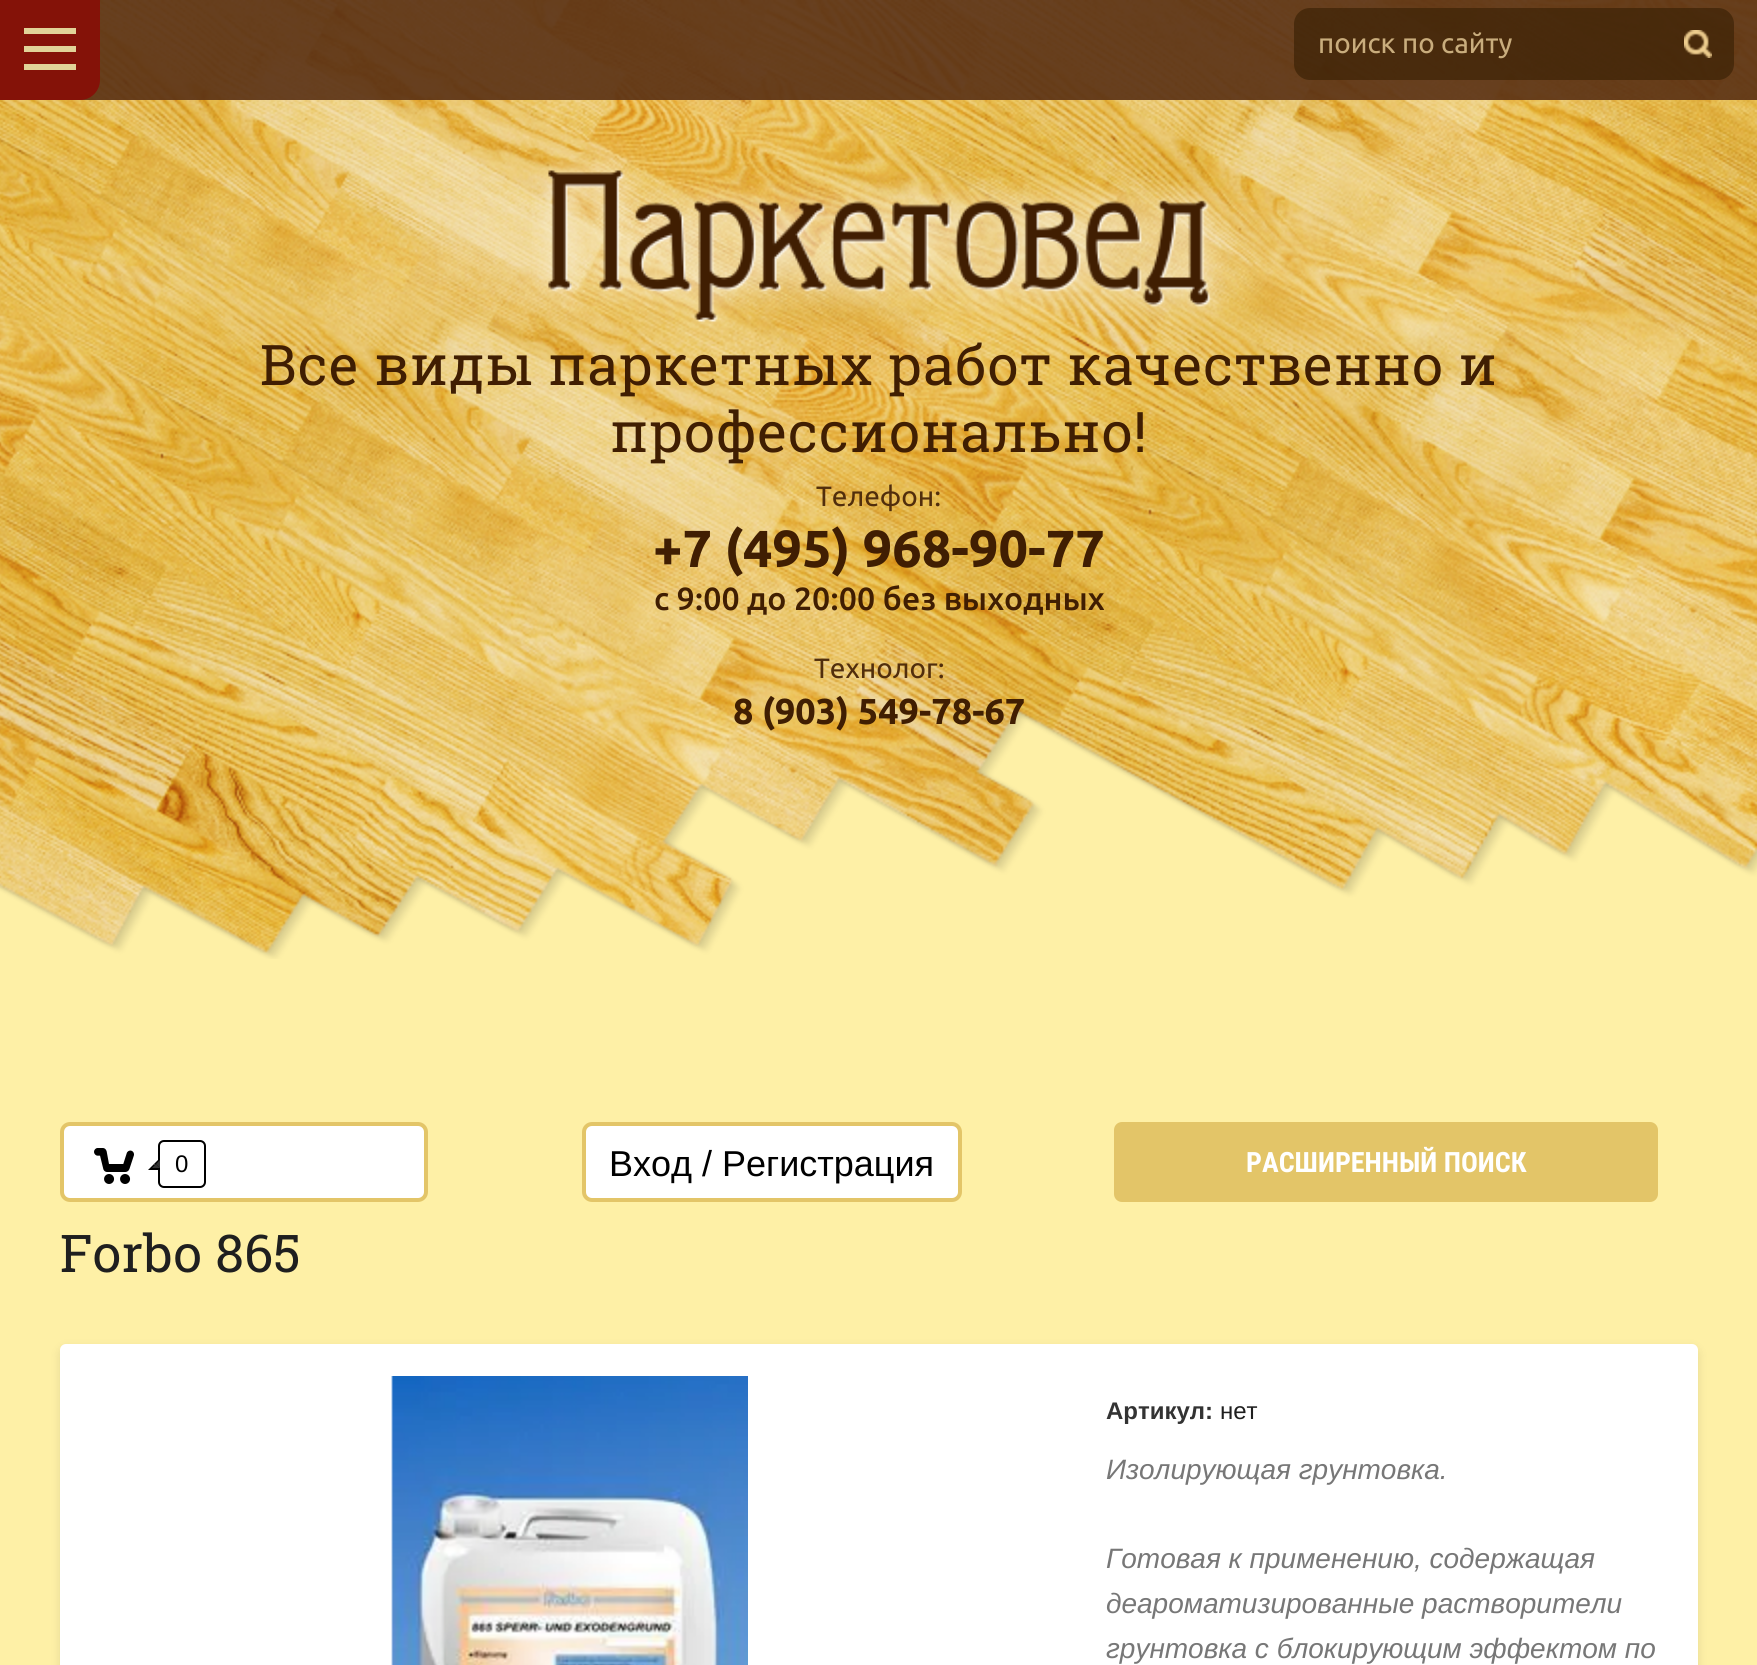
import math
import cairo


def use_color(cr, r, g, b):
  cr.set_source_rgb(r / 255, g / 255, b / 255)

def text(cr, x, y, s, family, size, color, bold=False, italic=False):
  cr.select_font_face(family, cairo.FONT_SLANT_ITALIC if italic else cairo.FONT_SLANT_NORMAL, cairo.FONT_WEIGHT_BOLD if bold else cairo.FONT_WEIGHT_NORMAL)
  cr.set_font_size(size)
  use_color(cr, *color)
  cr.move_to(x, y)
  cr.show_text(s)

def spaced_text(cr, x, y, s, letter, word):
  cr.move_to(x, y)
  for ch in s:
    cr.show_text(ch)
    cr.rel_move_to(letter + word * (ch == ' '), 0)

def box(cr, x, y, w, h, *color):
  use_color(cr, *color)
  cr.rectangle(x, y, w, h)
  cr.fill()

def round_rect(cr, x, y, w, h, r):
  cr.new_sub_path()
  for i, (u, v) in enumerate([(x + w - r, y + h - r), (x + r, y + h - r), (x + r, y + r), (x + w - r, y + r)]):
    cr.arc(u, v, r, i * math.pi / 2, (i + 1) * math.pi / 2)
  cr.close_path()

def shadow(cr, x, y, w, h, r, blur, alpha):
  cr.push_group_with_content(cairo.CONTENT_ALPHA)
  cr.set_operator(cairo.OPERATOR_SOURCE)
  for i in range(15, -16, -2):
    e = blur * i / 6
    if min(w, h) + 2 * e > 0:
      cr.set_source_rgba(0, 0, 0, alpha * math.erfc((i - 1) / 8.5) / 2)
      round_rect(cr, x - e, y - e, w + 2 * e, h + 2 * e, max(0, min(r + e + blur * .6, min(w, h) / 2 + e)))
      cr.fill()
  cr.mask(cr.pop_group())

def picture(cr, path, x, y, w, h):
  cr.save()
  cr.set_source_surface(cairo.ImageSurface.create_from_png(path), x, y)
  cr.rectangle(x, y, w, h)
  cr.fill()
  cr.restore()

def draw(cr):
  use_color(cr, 254, 240, 166)
  cr.paint()
  picture(cr, "img_02.png", 0, 0, 1757, 959)
  cr.set_source_rgba(0.349, 0.188, 0.082, 0.9)
  cr.rectangle(80, 0, 1677, 100)
  cr.fill()
  use_color(cr, 132, 18, 8)
  cr.new_path()
  cr.move_to(0, 0)
  cr.line_to(100, 0)
  cr.line_to(100, 80)
  cr.curve_to(100, 91, 91, 100, 80, 100)
  cr.line_to(0, 100)
  cr.close_path()
  cr.fill()
  box(cr, 24, 28, 52, 6, 225, 211, 152)
  box(cr, 24, 46, 52, 6, 225, 211, 152)
  box(cr, 24, 64, 52, 6, 225, 211, 152)
  cr.set_source_rgba(0.239, 0.137, 0.027, 0.7)
  round_rect(cr, 1294, 8, 440, 72, 16)
  cr.fill()
  picture(cr, "img_01.png", 1684, 30, 28, 28)
  picture(cr, "img_03.png", 532, 151, 697, 189)
  use_color(cr, 255, 255, 255)
  round_rect(cr, 62, 1124, 364, 76, 8)
  cr.fill_preserve()
  use_color(cr, 227, 197, 104)
  cr.set_line_width(4)
  cr.stroke()
  picture(cr, "img_04.png", 94, 1148, 40, 36)
  round_rect(cr, 159, 1141, 46, 46, 5)
  use_color(cr, 0, 0, 0)
  cr.set_line_width(2)
  cr.stroke()
  cr.new_path()
  cr.move_to(160, 1158)
  cr.line_to(160, 1170)
  cr.line_to(154, 1164)
  cr.close_path()
  cr.fill()
  cr.new_path()
  cr.move_to(160, 1170)
  cr.line_to(148, 1170)
  cr.line_to(154, 1164)
  cr.close_path()
  cr.fill()
  use_color(cr, 51, 51, 51)
  cr.new_path()
  cr.move_to(160, 1160)
  cr.line_to(160, 1168)
  cr.line_to(156, 1164)
  cr.close_path()
  cr.fill()
  cr.new_path()
  cr.move_to(160, 1168)
  cr.line_to(152, 1168)
  cr.line_to(156, 1164)
  cr.close_path()
  cr.fill()
  use_color(cr, 255, 255, 255)
  round_rect(cr, 584, 1124, 376, 76, 8)
  cr.fill_preserve()
  use_color(cr, 227, 197, 104)
  cr.set_line_width(4)
  cr.stroke()
  round_rect(cr, 1114, 1122, 544, 80, 8)
  cr.fill()
  use_color(cr, 0, 0, 0)
  shadow(cr, 60, 1348, 1638, 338, 6, 5, 0.1)
  use_color(cr, 255, 255, 255)
  round_rect(cr, 60, 1344, 1638, 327, 6)
  cr.fill()
  picture(cr, "img_05.png", 391, 1376, 357, 289)
  text(cr, 1318, 53, "поиск по сайту", "Ubuntu", 28, (201, 173, 125))
  cr.select_font_face("Roboto Slab")
  cr.set_font_size(56)
  use_color(cr, 64, 30, 2)
  spaced_text(cr, 260, 385, "Все виды паркетных работ качественно и", 0.8, 0)
  spaced_text(cr, 610, 452, "профессионально!", 0.8, 0)
  text(cr, 816, 506, "Телефон:", "Ubuntu", 28, (81, 46, 12))
  text(cr, 653, 567, "+7 (495) 968-90-77", "Ubuntu", 52, (64, 30, 2), bold=True)
  text(cr, 654, 610, "с 9:00 до 20:00 без выходных", "Ubuntu Medium", 32, (64, 30, 2))
  text(cr, 814, 678, "Технолог:", "Ubuntu", 28, (81, 46, 12))
  text(cr, 733, 724, "8 (903) 549-78-67", "Ubuntu", 36, (64, 30, 2), bold=True)
  text(cr, 175, 1172, "0", "Liberation Sans", 24, (0, 0, 0))
  text(cr, 609, 1176, "Вход / Регистрация", "Liberation Sans", 36, (0, 0, 0))
  text(cr, 1246, 1172, "РАСШИРЕННЫЙ ПОИСК", "Roboto Condensed", 28, (255, 255, 255), bold=True)
  text(cr, 60, 1272, "Forbo 865", "Roboto Slab", 52, (31, 31, 31))
  text(cr, 1106, 1419, "Артикул:", "Liberation Sans", 24, (51, 51, 51), bold=True)
  text(cr, 1220, 1419, "нет", "Liberation Sans", 24, (31, 31, 31))
  text(cr, 1106, 1479, "Изолирующая грунтовка.", "Liberation Sans", 28, (119, 119, 119), italic=True)
  text(cr, 1106, 1568, "Готовая к применению, содержащая", "Liberation Sans", 28, (119, 119, 119), italic=True)
  text(cr, 1106, 1613, "деароматизированные растворители", "Liberation Sans", 28, (119, 119, 119), italic=True)
  text(cr, 1106, 1658, "грунтовка с блокирующим эффектом по", "Liberation Sans", 28, (119, 119, 119), italic=True)


surface = cairo.ImageSurface(cairo.FORMAT_RGB24, 1757, 1665)
cr = cairo.Context(surface)
options = cairo.FontOptions()
options.set_hint_metrics(cairo.HINT_METRICS_OFF)
options.set_hint_style(cairo.HINT_STYLE_NONE)
cr.set_font_options(options)
cr.set_miter_limit(4)
draw(cr)
surface.write_to_png("out.png")
